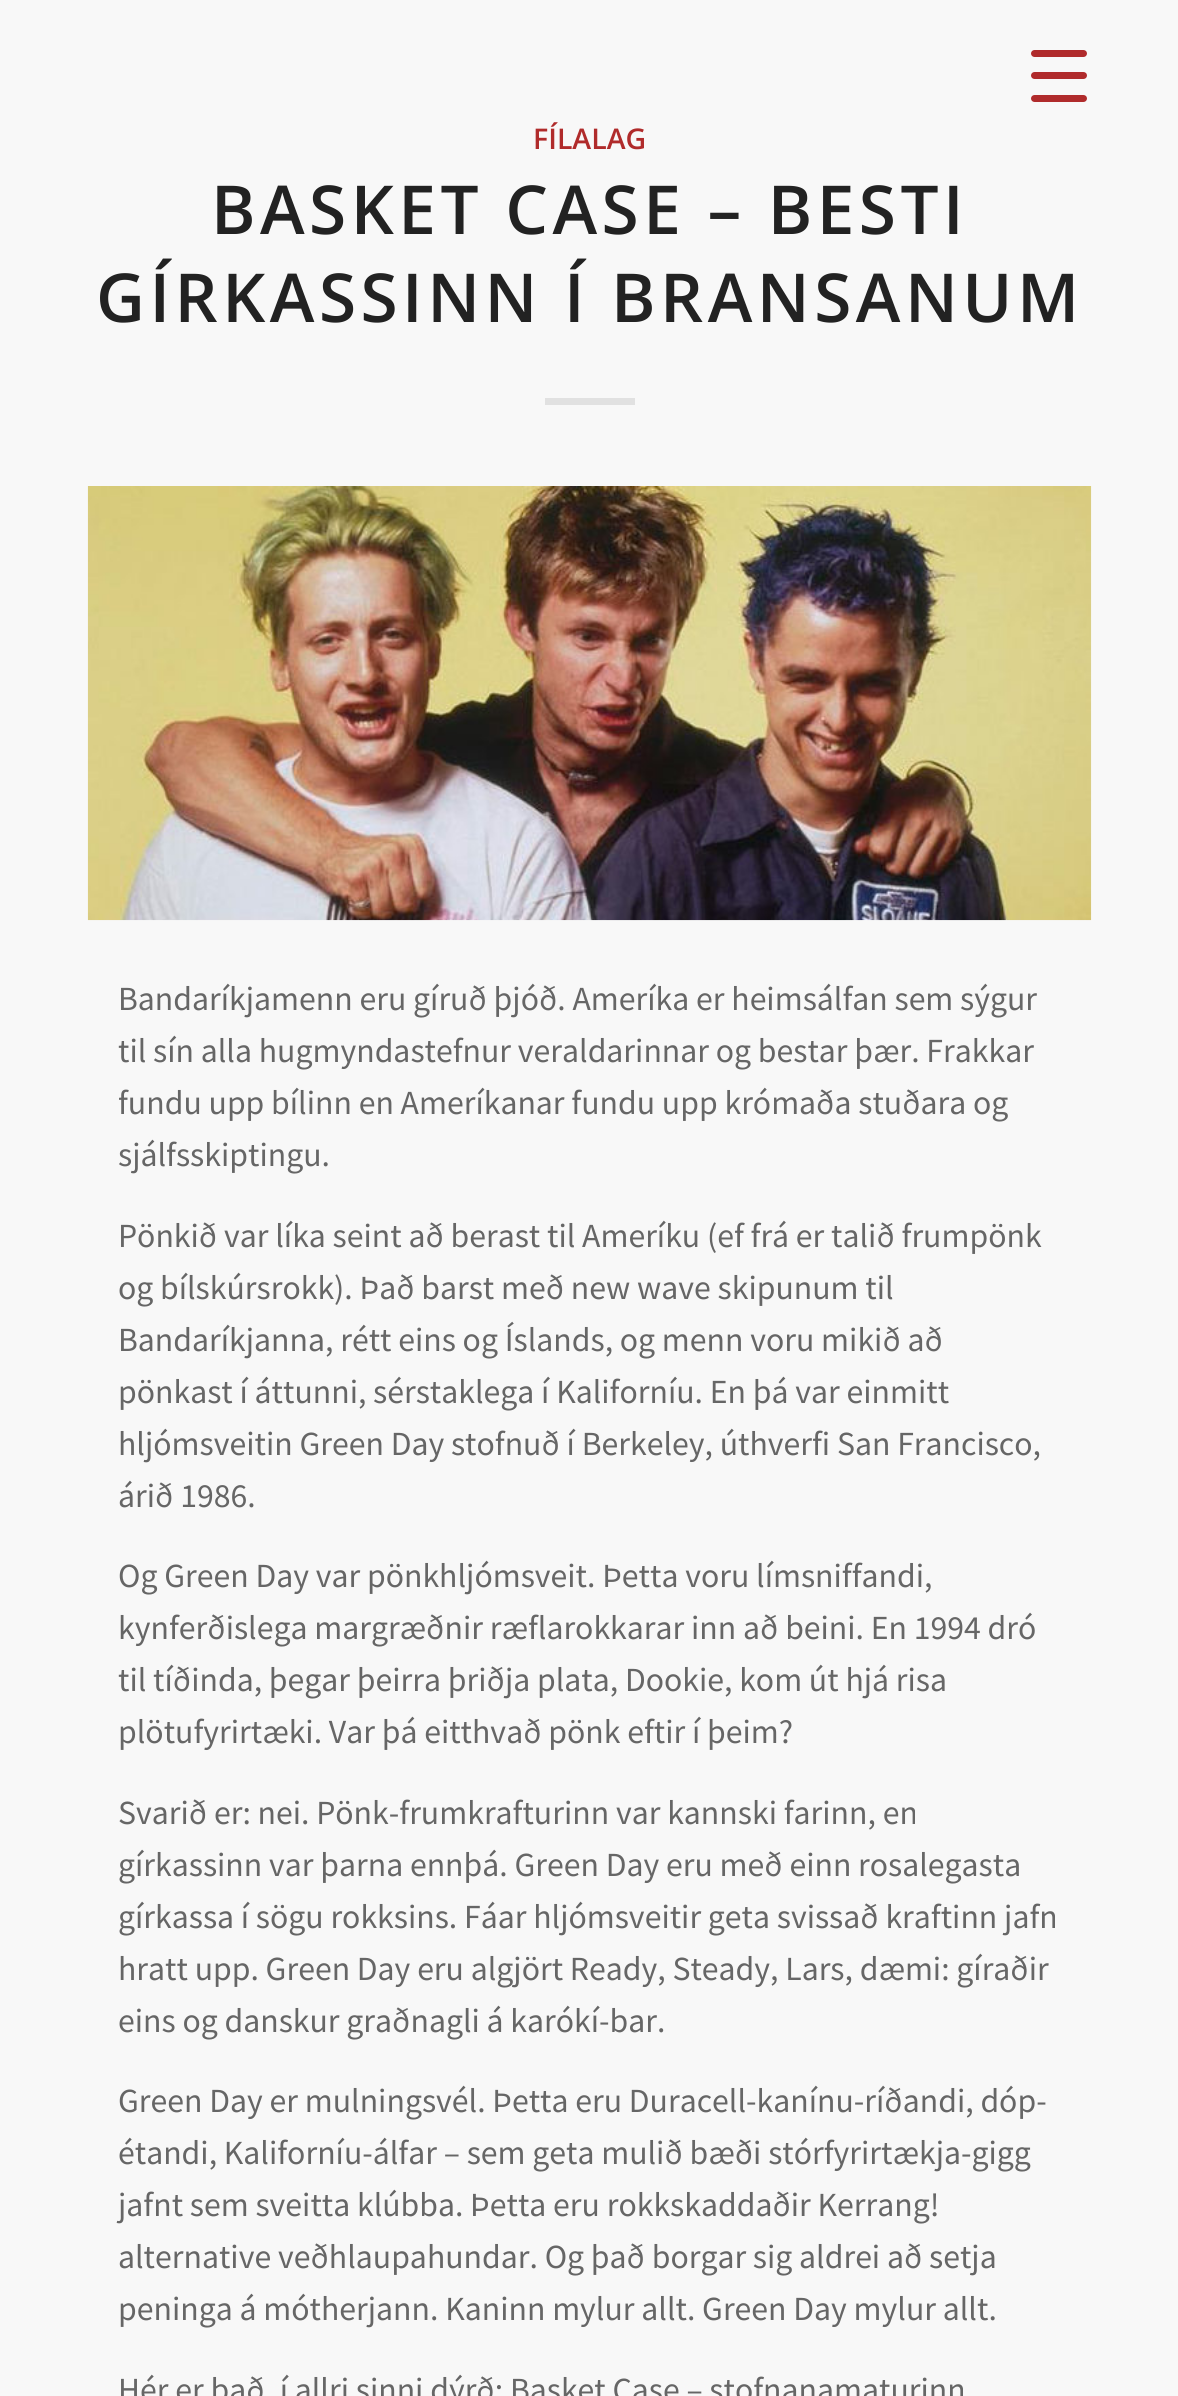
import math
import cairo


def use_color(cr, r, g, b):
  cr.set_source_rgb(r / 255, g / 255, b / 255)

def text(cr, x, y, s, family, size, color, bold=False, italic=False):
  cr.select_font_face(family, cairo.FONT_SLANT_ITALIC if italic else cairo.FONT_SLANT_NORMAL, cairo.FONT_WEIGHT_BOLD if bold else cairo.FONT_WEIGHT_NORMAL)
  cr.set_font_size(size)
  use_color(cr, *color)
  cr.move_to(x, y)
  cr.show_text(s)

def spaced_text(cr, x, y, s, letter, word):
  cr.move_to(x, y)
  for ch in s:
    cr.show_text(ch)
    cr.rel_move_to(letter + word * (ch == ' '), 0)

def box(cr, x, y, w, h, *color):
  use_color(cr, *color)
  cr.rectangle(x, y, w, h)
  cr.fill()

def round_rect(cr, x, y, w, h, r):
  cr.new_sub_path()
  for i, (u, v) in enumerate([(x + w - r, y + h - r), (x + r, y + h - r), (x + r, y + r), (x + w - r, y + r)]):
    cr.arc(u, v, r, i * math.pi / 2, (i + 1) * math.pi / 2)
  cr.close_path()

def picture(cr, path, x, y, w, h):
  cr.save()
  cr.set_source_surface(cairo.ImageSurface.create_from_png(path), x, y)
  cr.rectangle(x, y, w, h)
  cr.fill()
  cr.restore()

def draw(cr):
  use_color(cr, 248, 248, 248)
  cr.paint()
  use_color(cr, 176, 43, 44)
  round_rect(cr, 1031, 72, 56, 7, 3.5)
  cr.fill()
  round_rect(cr, 1031, 50, 56, 7, 3.5)
  cr.fill()
  round_rect(cr, 1031, 95, 56, 7, 3.5)
  cr.fill()
  box(cr, 545, 398, 90, 7, 225, 225, 225)
  picture(cr, "img_01.png", 87, 486, 1005, 435)
  text(cr, 533, 149, "FÍLALAG", "Open Sans SemiBold", 28.5, (176, 43, 43))
  cr.set_font_size(67.5)
  use_color(cr, 34, 34, 34)
  spaced_text(cr, 211, 234, "BASKET CASE – BESTI", 4.5, 0)
  spaced_text(cr, 96, 322, "GÍRKASSINN Í BRANSANUM", 4.5, 0)
  text(cr, 118, 1010, "Bandaríkjamenn eru gíruð þjóð. Ameríka er heimsálfan sem sýgur", "Source Sans Pro", 33.75, (102, 102, 102))
  text(cr, 118, 1062, "til sín alla hugmyndastefnur veraldarinnar og bestar þær. Frakkar", "Source Sans Pro", 33.75, (102, 102, 102))
  text(cr, 118, 1114, "fundu upp bílinn en Ameríkanar fundu upp krómaða stuðara og", "Source Sans Pro", 33.75, (102, 102, 102))
  text(cr, 118, 1166, "sjálfsskiptingu.", "Source Sans Pro", 33.75, (102, 102, 102))
  text(cr, 118, 1247, "Pönkið var líka seint að berast til Ameríku (ef frá er talið frumpönk", "Source Sans Pro", 33.75, (102, 102, 102))
  text(cr, 118, 1299, "og bílskúrsrokk). Það barst með new wave skipunum til", "Source Sans Pro", 33.75, (102, 102, 102))
  text(cr, 118, 1351, "Bandaríkjanna, rétt eins og Íslands, og menn voru mikið að", "Source Sans Pro", 33.75, (102, 102, 102))
  text(cr, 118, 1403, "pönkast í áttunni, sérstaklega í Kaliforníu. En þá var einmitt", "Source Sans Pro", 33.75, (102, 102, 102))
  text(cr, 118, 1455, "hljómsveitin Green Day stofnuð í Berkeley, úthverfi San Francisco,", "Source Sans Pro", 33.75, (102, 102, 102))
  text(cr, 118, 1507, "árið 1986.", "Source Sans Pro", 33.75, (102, 102, 102))
  text(cr, 118, 1587, "Og Green Day var pönkhljómsveit. Þetta voru límsniffandi,", "Source Sans Pro", 33.75, (102, 102, 102))
  text(cr, 118, 1639, "kynferðislega margræðnir ræflarokkarar inn að beini. En 1994 dró", "Source Sans Pro", 33.75, (102, 102, 102))
  text(cr, 118, 1691, "til tíðinda, þegar þeirra þriðja plata, Dookie, kom út hjá risa", "Source Sans Pro", 33.75, (102, 102, 102))
  text(cr, 118, 1743, "plötufyrirtæki. Var þá eitthvað pönk eftir í þeim?", "Source Sans Pro", 33.75, (102, 102, 102))
  text(cr, 118, 1824, "Svarið er: nei. Pönk-frumkrafturinn var kannski farinn, en", "Source Sans Pro", 33.75, (102, 102, 102))
  text(cr, 118, 1876, "gírkassinn var þarna ennþá. Green Day eru með einn rosalegasta", "Source Sans Pro", 33.75, (102, 102, 102))
  text(cr, 118, 1928, "gírkassa í sögu rokksins. Fáar hljómsveitir geta svissað kraftinn jafn", "Source Sans Pro", 33.75, (102, 102, 102))
  text(cr, 118, 1980, "hratt upp. Green Day eru algjört Ready, Steady, Lars, dæmi: gíraðir", "Source Sans Pro", 33.75, (102, 102, 102))
  text(cr, 118, 2032, "eins og danskur graðnagli á karókí-bar.", "Source Sans Pro", 33.75, (102, 102, 102))
  text(cr, 118, 2112, "Green Day er mulningsvél. Þetta eru Duracell-kanínu-ríðandi, dóp-", "Source Sans Pro", 33.75, (102, 102, 102))
  text(cr, 118, 2164, "étandi, Kaliforníu-álfar – sem geta mulið bæði stórfyrirtækja-gigg", "Source Sans Pro", 33.75, (102, 102, 102))
  text(cr, 118, 2216, "jafnt sem sveitta klúbba. Þetta eru rokkskaddaðir Kerrang!", "Source Sans Pro", 33.75, (102, 102, 102))
  text(cr, 118, 2268, "alternative veðhlaupahundar. Og það borgar sig aldrei að setja", "Source Sans Pro", 33.75, (102, 102, 102))
  text(cr, 118, 2320, "peninga á mótherjann. Kaninn mylur allt. Green Day mylur allt.", "Source Sans Pro", 33.75, (102, 102, 102))
  text(cr, 118, 2401, "Hér er það, í allri sinni dýrð: Basket Case – stofnanamaturinn", "Source Sans Pro", 33.75, (102, 102, 102))


surface = cairo.ImageSurface(cairo.FORMAT_RGB24, 1178, 2396)
cr = cairo.Context(surface)
options = cairo.FontOptions()
options.set_hint_metrics(cairo.HINT_METRICS_OFF)
options.set_hint_style(cairo.HINT_STYLE_NONE)
cr.set_font_options(options)
cr.set_miter_limit(4)
draw(cr)
surface.write_to_png("out.png")
